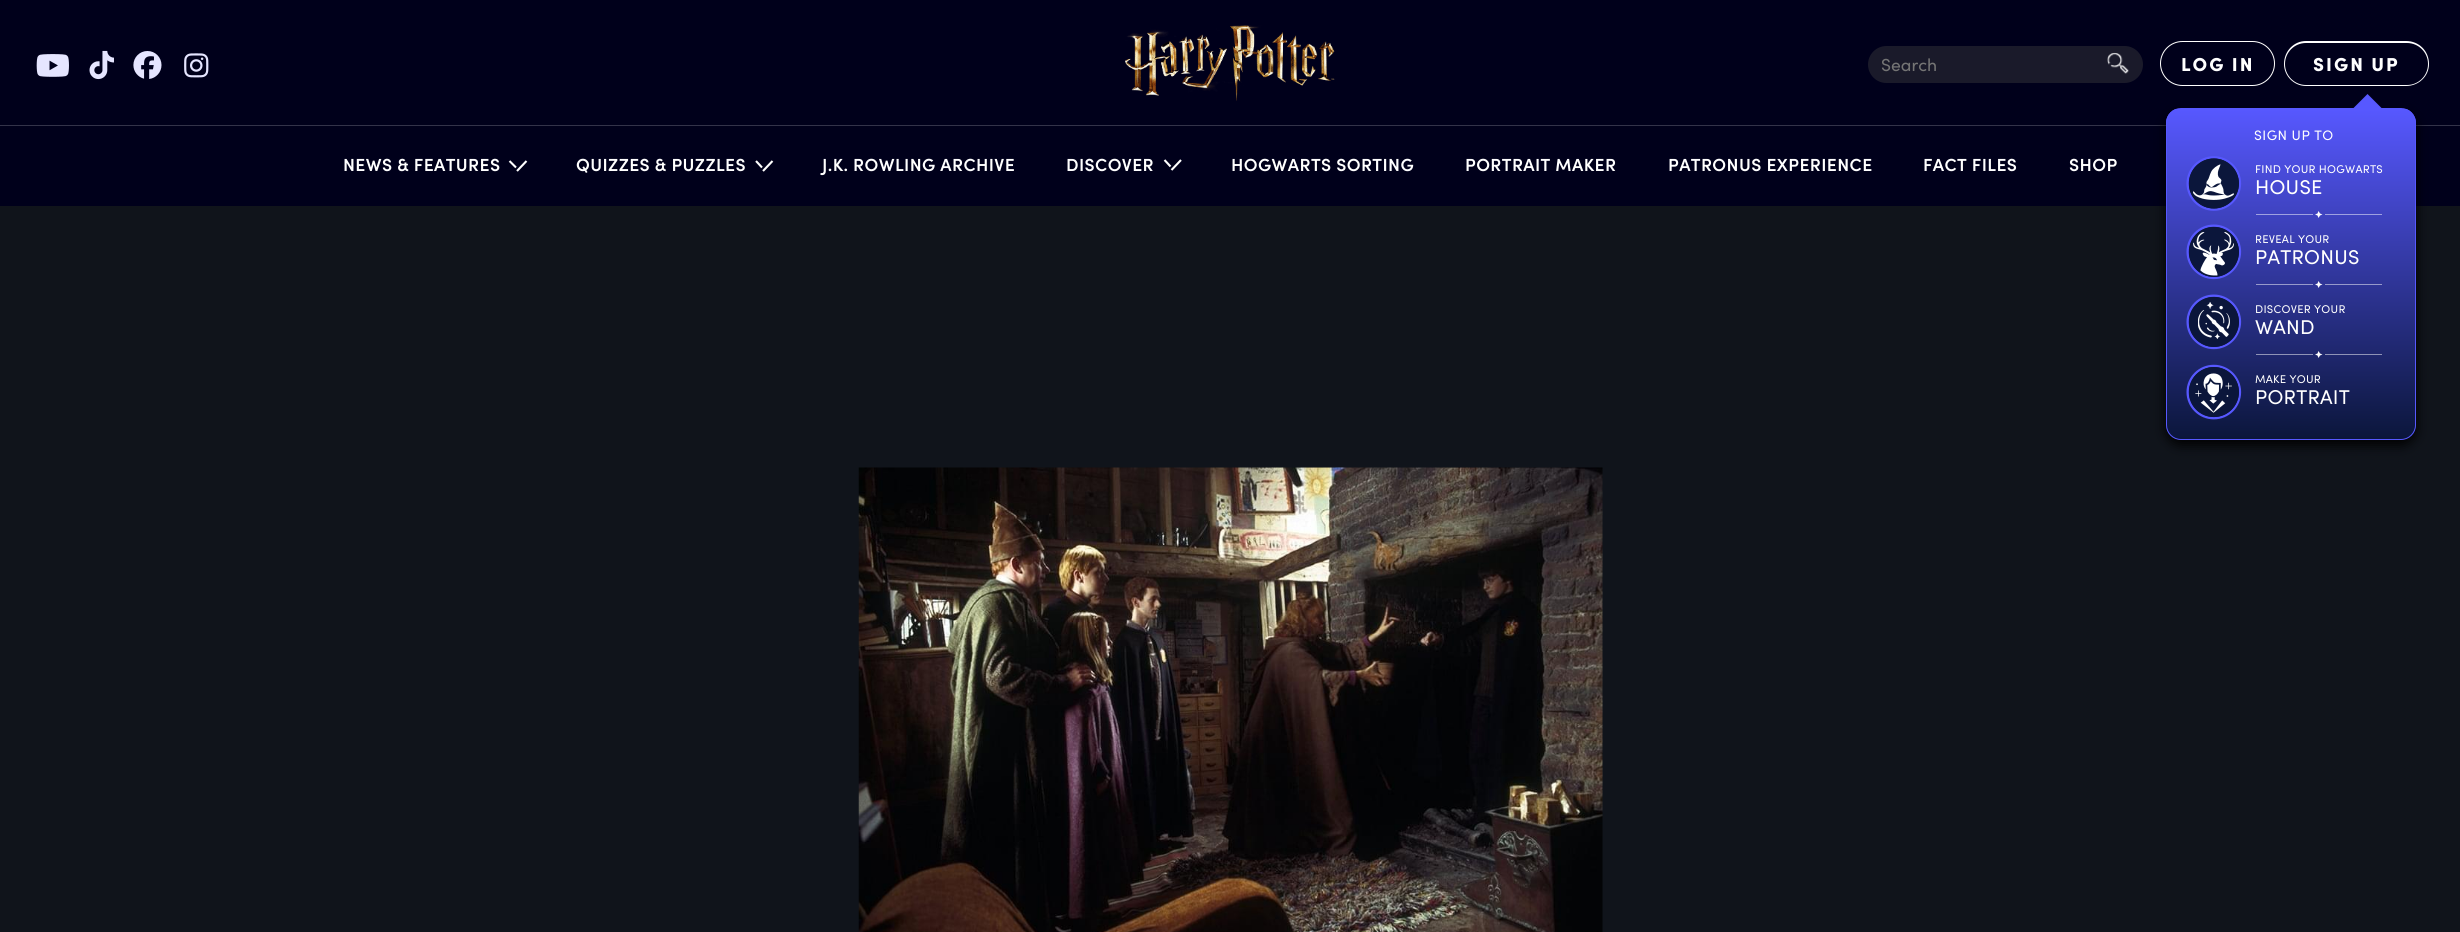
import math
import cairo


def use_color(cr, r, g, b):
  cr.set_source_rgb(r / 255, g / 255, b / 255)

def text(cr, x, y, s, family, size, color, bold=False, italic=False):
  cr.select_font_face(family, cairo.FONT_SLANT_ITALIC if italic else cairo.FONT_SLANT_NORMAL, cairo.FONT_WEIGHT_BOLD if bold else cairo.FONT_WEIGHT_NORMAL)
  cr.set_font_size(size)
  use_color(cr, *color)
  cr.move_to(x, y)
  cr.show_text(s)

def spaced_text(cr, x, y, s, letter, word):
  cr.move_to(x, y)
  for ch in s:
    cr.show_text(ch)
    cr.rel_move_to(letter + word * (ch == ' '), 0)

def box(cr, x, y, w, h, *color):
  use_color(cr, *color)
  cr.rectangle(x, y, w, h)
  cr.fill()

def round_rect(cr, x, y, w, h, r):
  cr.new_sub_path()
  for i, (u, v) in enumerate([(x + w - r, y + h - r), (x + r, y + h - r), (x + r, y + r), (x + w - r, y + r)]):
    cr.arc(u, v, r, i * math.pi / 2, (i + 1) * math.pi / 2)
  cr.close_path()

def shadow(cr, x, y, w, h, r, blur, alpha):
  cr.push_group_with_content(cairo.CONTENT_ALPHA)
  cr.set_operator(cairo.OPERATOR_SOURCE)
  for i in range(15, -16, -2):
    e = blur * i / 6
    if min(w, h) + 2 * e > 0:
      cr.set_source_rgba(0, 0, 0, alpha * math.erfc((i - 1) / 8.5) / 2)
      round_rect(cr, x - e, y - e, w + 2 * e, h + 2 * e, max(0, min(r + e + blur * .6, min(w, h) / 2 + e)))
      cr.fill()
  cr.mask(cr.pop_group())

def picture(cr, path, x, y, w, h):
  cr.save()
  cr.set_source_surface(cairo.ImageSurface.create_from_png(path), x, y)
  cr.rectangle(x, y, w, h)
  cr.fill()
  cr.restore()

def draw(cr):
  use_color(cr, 16, 20, 27)
  cr.paint()
  box(cr, 0, 0, 2460, 125, 0, 0, 27)
  picture(cr, "img_01.png", 36, 54, 33, 23)
  picture(cr, "img_02.png", 89, 50, 25, 30)
  picture(cr, "img_03.png", 133, 51, 29, 28)
  picture(cr, "img_04.png", 184, 53, 25, 25)
  box(cr, 0, 126, 2460, 80, 0, 0, 27)
  box(cr, 0, 125, 2460, 1, 51, 51, 73)
  cr.new_path()
  cr.move_to(516, 167.5)
  cr.line_to(509.5, 161)
  cr.move_to(517, 171)
  cr.line_to(526.5, 161)
  use_color(cr, 255, 255, 255)
  cr.set_line_width(2.1)
  cr.stroke()
  cr.new_path()
  cr.move_to(762, 167.5)
  cr.line_to(756, 161)
  cr.move_to(763, 171)
  cr.line_to(772.5, 161)
  cr.stroke()
  cr.new_path()
  cr.move_to(1170.5, 166.5)
  cr.line_to(1164.5, 160)
  cr.move_to(1171.5, 170)
  cr.line_to(1181, 160)
  cr.stroke()
  picture(cr, "img_05.png", 1125, 25, 210, 76)
  use_color(cr, 26, 26, 42)
  round_rect(cr, 1868, 46, 275, 37, 18.5)
  cr.fill()
  picture(cr, "img_06.png", 2107, 52, 22, 22)
  round_rect(cr, 2160.5, 41.5, 114, 44, 22)
  use_color(cr, 255, 255, 255)
  cr.set_line_width(1)
  cr.stroke()
  cr.new_path()
  cr.move_to(2306, 41)
  cr.curve_to(2294, 41, 2284, 51, 2284, 64)
  cr.curve_to(2284, 76, 2294, 86, 2306, 86)
  cr.line_to(2406, 86)
  cr.curve_to(2419, 86, 2429, 76, 2429, 64)
  cr.curve_to(2429, 51, 2419, 41, 2406, 41)
  cr.close_path()
  cr.fill()
  use_color(cr, 0, 0, 27)
  round_rect(cr, 2285, 43, 143, 42, 21)
  cr.fill()
  use_color(cr, 0, 0, 0)
  shadow(cr, 2166, 113, 250, 332, 15, 6, 1)
  cr.save()
  round_rect(cr, 2166, 108, 250, 332, 15)
  cr.clip()
  gradient = cairo.LinearGradient(2291, 109, 2291, 439)
  gradient.add_color_stop_rgba(0, 0.341, 0.345, 1, 1)
  gradient.add_color_stop_rgba(1, 0.043, 0.086, 0.231, 1)
  cr.set_source(gradient)
  cr.rectangle(2166, 109, 250, 330)
  cr.fill()
  cr.restore()
  round_rect(cr, 2166.5, 108.5, 249, 331, 14.5)
  use_color(cr, 87, 88, 255)
  cr.stroke()
  cr.new_path()
  cr.move_to(2382.5, 109)
  cr.line_to(2352.5, 109)
  cr.line_to(2367.5, 94)
  cr.close_path()
  cr.fill()
  picture(cr, "img_07.png", 2186, 156, 56, 55)
  box(cr, 2256, 214, 57, 1, 159, 161, 224)
  box(cr, 2325, 214, 57, 1, 159, 161, 224)
  use_color(cr, 255, 255, 255)
  cr.new_path()
  cr.move_to(2318.5, 218)
  cr.line_to(2317.5, 215.5)
  cr.line_to(2315, 214.5)
  cr.line_to(2317.5, 213.5)
  cr.line_to(2318.5, 211)
  cr.line_to(2320, 213.5)
  cr.line_to(2322.5, 214.5)
  cr.line_to(2320, 215.5)
  cr.close_path()
  cr.fill()
  picture(cr, "img_08.png", 2186, 224, 56, 56)
  box(cr, 2256, 284, 57, 1, 151, 154, 203)
  box(cr, 2325, 284, 57, 1, 151, 154, 203)
  use_color(cr, 255, 255, 255)
  cr.new_path()
  cr.move_to(2318.5, 288)
  cr.line_to(2317.5, 285.5)
  cr.line_to(2315, 284.5)
  cr.line_to(2317.5, 283.5)
  cr.line_to(2318.5, 281)
  cr.line_to(2320, 283.5)
  cr.line_to(2322.5, 284.5)
  cr.line_to(2320, 285.5)
  cr.close_path()
  cr.fill()
  picture(cr, "img_09.png", 2186, 294, 56, 56)
  box(cr, 2256, 354, 57, 1, 143, 147, 182)
  box(cr, 2325, 354, 57, 1, 143, 147, 182)
  use_color(cr, 255, 255, 255)
  cr.new_path()
  cr.move_to(2318.5, 358)
  cr.line_to(2317.5, 355.5)
  cr.line_to(2315, 354.5)
  cr.line_to(2317.5, 353.5)
  cr.line_to(2318.5, 351)
  cr.line_to(2320, 353.5)
  cr.line_to(2322.5, 354.5)
  cr.line_to(2320, 355.5)
  cr.close_path()
  cr.fill()
  picture(cr, "img_10.png", 2186, 364, 56, 56)
  picture(cr, "img_11.png", 858, 467, 745, 465)
  cr.select_font_face("Sofia SemiBold")
  cr.set_font_size(17.5)
  spaced_text(cr, 343, 171, "NEWS & FEATURES", 0.4, 0)
  spaced_text(cr, 576, 171, "QUIZZES & PUZZLES", 0.4, 0)
  spaced_text(cr, 822, 171, "J.K. ROWLING ARCHIVE", 0.4, 0)
  spaced_text(cr, 1066, 171, "DISCOVER", 0.4, 0)
  spaced_text(cr, 1231, 171, "HOGWARTS SORTING", 0.4, 0)
  spaced_text(cr, 1465, 171, "PORTRAIT MAKER", 0.4, 0)
  spaced_text(cr, 1668, 171, "PATRONUS EXPERIENCE", 0.4, 0)
  spaced_text(cr, 1923, 171, "FACT FILES", 0.4, 0)
  spaced_text(cr, 2069, 171, "SHOP", 0.4, 0)
  text(cr, 1881, 71, "Search", "Sofia", 17.5, (117, 117, 117))
  cr.select_font_face("Sofia Black")
  cr.set_font_size(18.75)
  use_color(cr, 255, 255, 255)
  spaced_text(cr, 2181, 71, "LOG IN", 2, 0)
  spaced_text(cr, 2313, 71, "SIGN UP", 2, 0)
  cr.select_font_face("Sofia")
  cr.set_font_size(13.75)
  spaced_text(cr, 2254, 140, "SIGN UP TO", 0.5, 0)
  cr.set_font_size(11.25)
  spaced_text(cr, 2255, 173, "FIND YOUR HOGWARTS", 0.25, 0)
  cr.set_font_size(20)
  spaced_text(cr, 2255, 194, "HOUSE", 0.25, 0)
  cr.set_font_size(11.25)
  spaced_text(cr, 2255, 243, "REVEAL YOUR", 0.25, 0)
  cr.set_font_size(20)
  spaced_text(cr, 2255, 264, "PATRONUS", 0.25, 0)
  cr.set_font_size(11.25)
  spaced_text(cr, 2255, 313, "DISCOVER YOUR", 0.25, 0)
  cr.set_font_size(20)
  spaced_text(cr, 2255, 334, "WAND", 0.25, 0)
  cr.set_font_size(11.25)
  spaced_text(cr, 2255, 383, "MAKE YOUR", 0.25, 0)
  cr.set_font_size(20)
  spaced_text(cr, 2255, 404, "PORTRAIT", 0.25, 0)


surface = cairo.ImageSurface(cairo.FORMAT_RGB24, 2460, 932)
cr = cairo.Context(surface)
options = cairo.FontOptions()
options.set_hint_metrics(cairo.HINT_METRICS_OFF)
options.set_hint_style(cairo.HINT_STYLE_NONE)
cr.set_font_options(options)
cr.set_miter_limit(4)
draw(cr)
surface.write_to_png("out.png")
